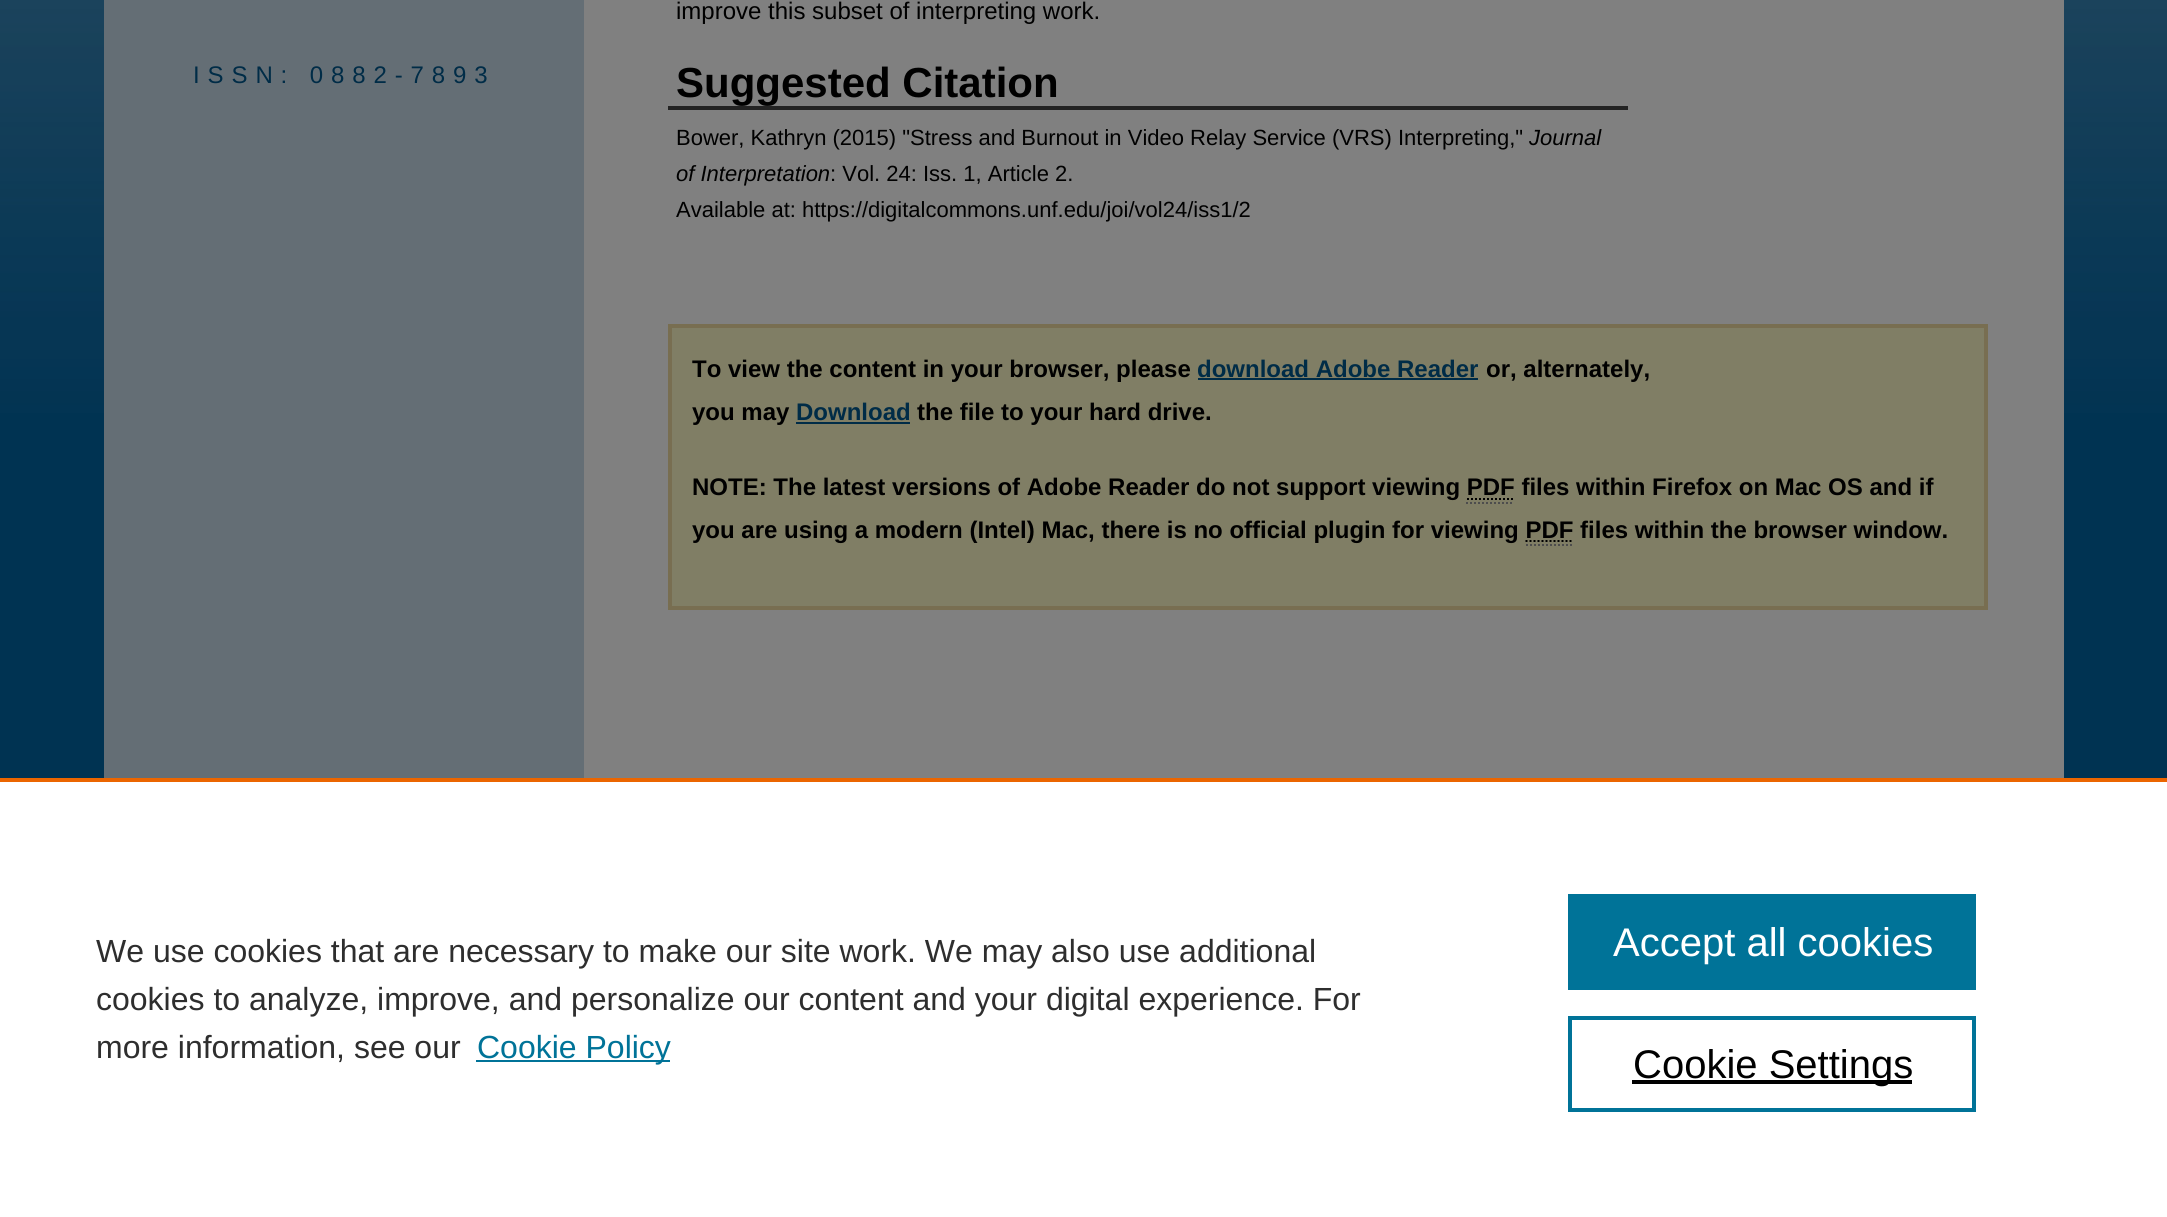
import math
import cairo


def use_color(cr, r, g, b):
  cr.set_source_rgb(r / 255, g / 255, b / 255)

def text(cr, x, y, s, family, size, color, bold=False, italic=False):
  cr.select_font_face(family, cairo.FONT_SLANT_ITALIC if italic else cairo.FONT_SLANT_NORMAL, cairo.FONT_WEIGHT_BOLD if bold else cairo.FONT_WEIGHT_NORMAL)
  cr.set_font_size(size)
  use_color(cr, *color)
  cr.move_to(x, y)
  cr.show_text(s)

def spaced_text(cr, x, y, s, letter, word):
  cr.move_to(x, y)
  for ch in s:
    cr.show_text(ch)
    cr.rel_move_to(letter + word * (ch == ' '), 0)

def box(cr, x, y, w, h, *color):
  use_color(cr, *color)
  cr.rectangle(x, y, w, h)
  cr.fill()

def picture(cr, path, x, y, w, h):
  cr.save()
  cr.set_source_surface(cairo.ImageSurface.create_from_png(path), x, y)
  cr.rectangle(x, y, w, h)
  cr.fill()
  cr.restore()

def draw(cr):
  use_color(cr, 0, 51, 82)
  cr.paint()
  picture(cr, "img_01.png", 0, 0, 2167, 413)
  box(cr, 104, 0, 480, 778, 100, 110, 117)
  box(cr, 584, 0, 1480, 778, 128, 128, 128)
  box(cr, 668, 106, 960, 4, 35, 35, 35)
  use_color(cr, 128, 126, 101)
  cr.rectangle(670, 326, 1316, 282)
  cr.fill_preserve()
  use_color(cr, 120, 110, 81)
  cr.set_line_width(4)
  cr.stroke()
  box(cr, 1198, 378, 280, 2, 0, 44, 71)
  box(cr, 796, 422, 114, 2, 0, 44, 71)
  cr.new_path()
  cr.move_to(1467, 499)
  cr.line_to(1515, 499)
  use_color(cr, 0, 0, 0)
  cr.set_line_width(2)
  cr.set_dash([2, 2])
  cr.stroke()
  cr.new_path()
  cr.move_to(1466, 503)
  cr.line_to(1514, 503)
  use_color(cr, 77, 77, 77)
  cr.stroke()
  cr.new_path()
  cr.move_to(1525.5, 541)
  cr.line_to(1573.5, 541)
  use_color(cr, 0, 0, 0)
  cr.stroke()
  cr.new_path()
  cr.move_to(1526, 545)
  cr.line_to(1574, 545)
  use_color(cr, 77, 77, 77)
  cr.stroke()
  box(cr, 0, 782, 2167, 435, 255, 255, 255)
  box(cr, 0, 778, 2167, 4, 235, 101, 0)
  box(cr, 476, 1060, 194, 2, 0, 115, 152)
  box(cr, 1568, 894, 408, 96, 0, 115, 152)
  cr.rectangle(1570, 1018, 404, 92)
  cr.set_line_width(4)
  cr.set_dash([])
  cr.stroke()
  box(cr, 1632, 1080, 280, 4, 0, 0, 0)
  cr.select_font_face("Liberation Sans")
  cr.set_font_size(24)
  use_color(cr, 0, 44, 71)
  spaced_text(cr, 193, 83, "ISSN: 0882-7893", 7.9, 0)
  text(cr, 676, 19, "improve this subset of interpreting work.", "Liberation Sans", 24, (0, 0, 0))
  text(cr, 676, 97, "Suggested Citation", "Liberation Sans", 42, (0, 0, 0), bold=True)
  text(cr, 676, 145, "Bower, Kathryn (2015) \"Stress and Burnout in Video Relay Service (VRS) Interpreting,\"", "Liberation Sans", 22, (0, 0, 0))
  text(cr, 1529, 145, "Journal", "Liberation Sans", 22, (0, 0, 0), italic=True)
  text(cr, 676, 181, "of Interpretation", "Liberation Sans", 22, (0, 0, 0), italic=True)
  text(cr, 830, 181, ": Vol. 24: Iss. 1, Article 2.", "Liberation Sans", 22, (0, 0, 0))
  text(cr, 676, 217, "Available at: https://digitalcommons.unf.edu/joi/vol24/iss1/2", "Liberation Sans", 22, (0, 0, 0))
  text(cr, 692, 377, "To view the content in your browser, please", "Liberation Sans", 24, (0, 0, 0), bold=True)
  text(cr, 1197, 377, "download Adobe Reader", "Liberation Sans", 24, (0, 44, 71), bold=True)
  text(cr, 1486, 377, "or, alternately,", "Liberation Sans", 24, (0, 0, 0), bold=True)
  text(cr, 692, 420, "you may", "Liberation Sans", 24, (0, 0, 0), bold=True)
  text(cr, 796, 420, "Download", "Liberation Sans", 24, (0, 44, 71), bold=True)
  text(cr, 917, 420, "the file to your hard drive.", "Liberation Sans", 24, (0, 0, 0), bold=True)
  text(cr, 692, 495, "NOTE: The latest versions of Adobe Reader do not support viewing PDF files within Firefox on Mac OS and if", "Liberation Sans", 24, (0, 0, 0), bold=True)
  text(cr, 692, 538, "you are using a modern (Intel) Mac, there is no official plugin for viewing PDF files within the browser window.", "Liberation Sans", 24, (0, 0, 0), bold=True)
  text(cr, 96, 962, "We use cookies that are necessary to make our site work. We may also use additional", "Liberation Sans", 32, (46, 46, 46))
  text(cr, 96, 1010, "cookies to analyze, improve, and personalize our content and your digital experience. For", "Liberation Sans", 32, (46, 46, 46))
  text(cr, 96, 1058, "more information, see our", "Liberation Sans", 32, (46, 46, 46))
  text(cr, 477, 1058, "Cookie Policy", "Liberation Sans", 32, (0, 115, 152))
  text(cr, 1613, 956, "Accept all cookies", "Liberation Sans", 40, (255, 255, 255))
  text(cr, 1633, 1078, "Cookie Settings", "Liberation Sans", 40, (0, 0, 0))


surface = cairo.ImageSurface(cairo.FORMAT_RGB24, 2167, 1217)
cr = cairo.Context(surface)
options = cairo.FontOptions()
options.set_hint_metrics(cairo.HINT_METRICS_OFF)
options.set_hint_style(cairo.HINT_STYLE_NONE)
cr.set_font_options(options)
cr.set_miter_limit(4)
draw(cr)
surface.write_to_png("out.png")
